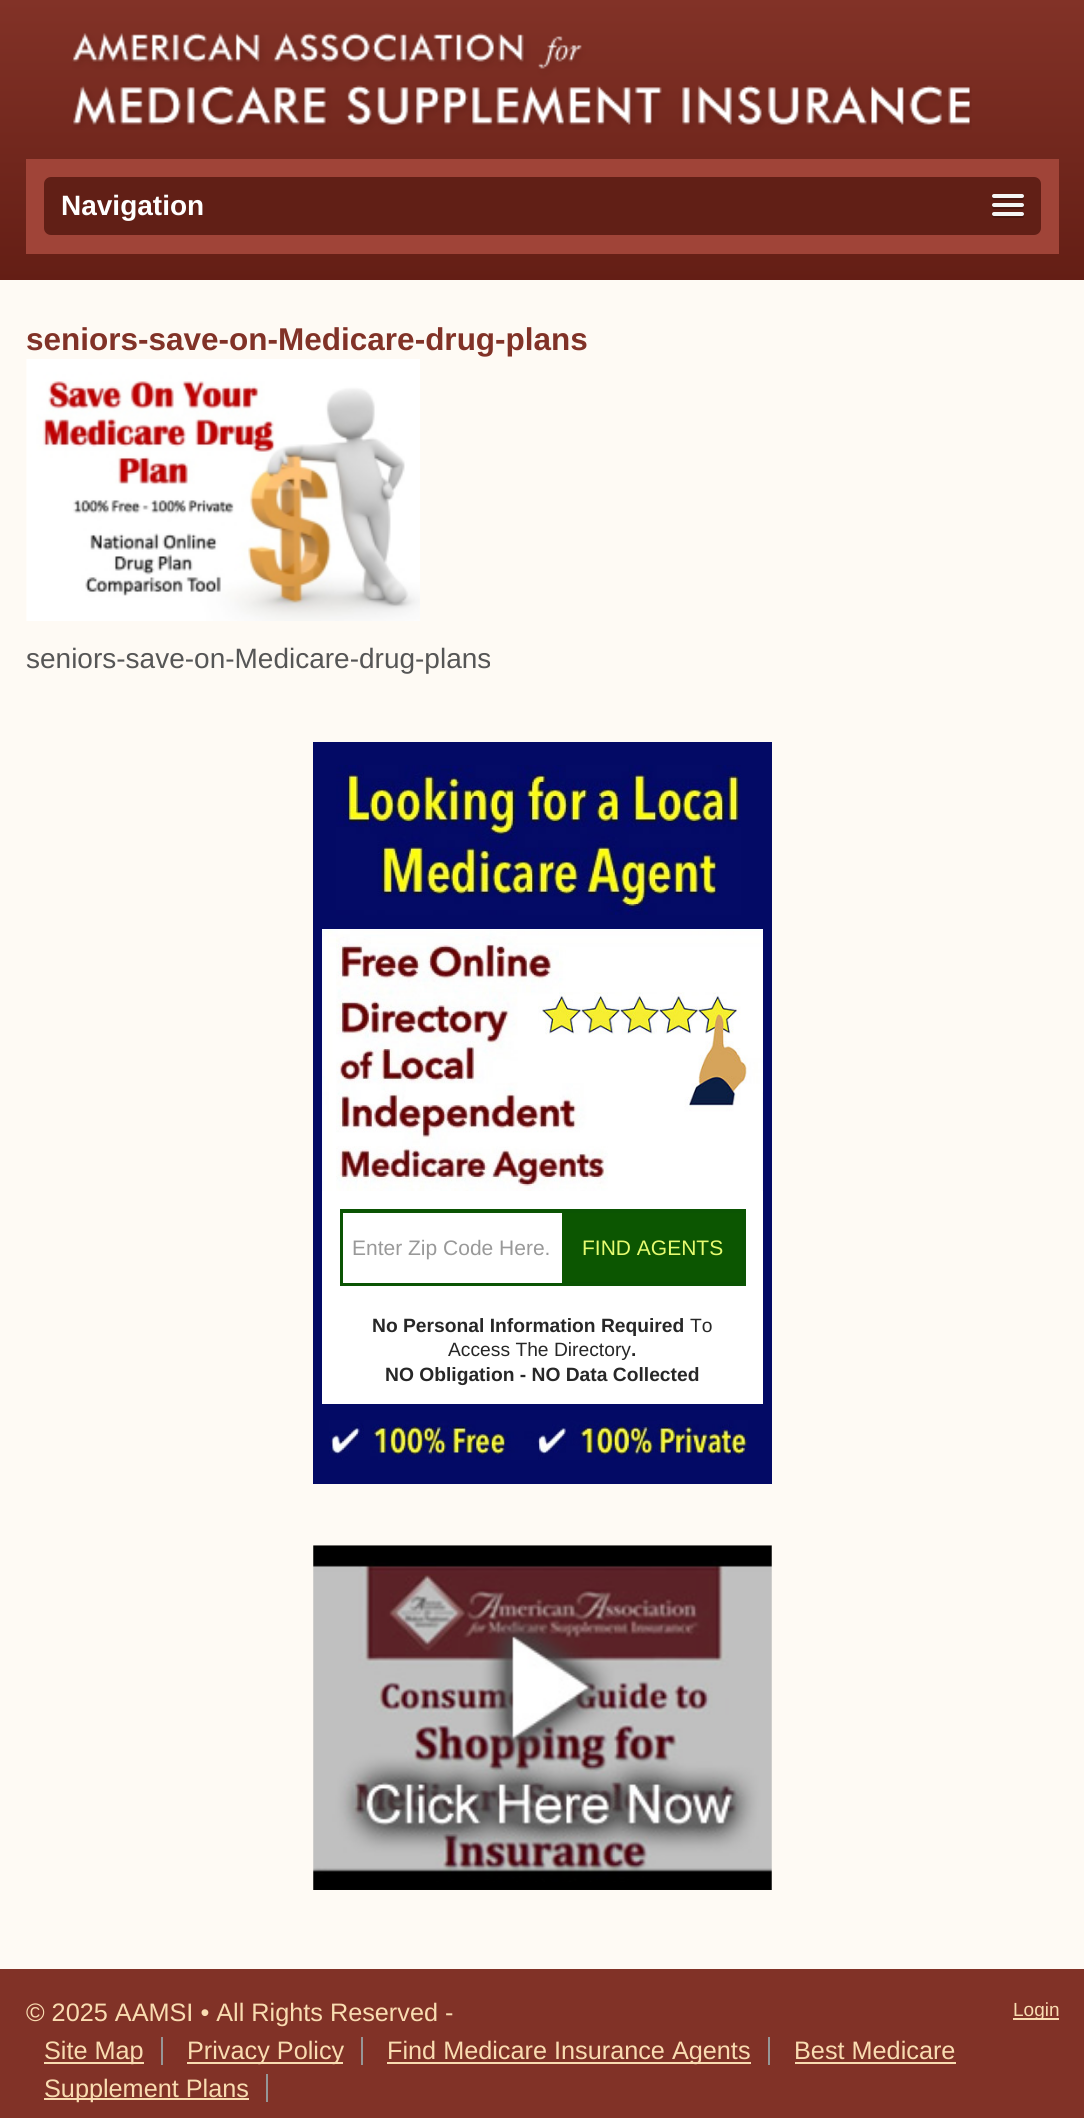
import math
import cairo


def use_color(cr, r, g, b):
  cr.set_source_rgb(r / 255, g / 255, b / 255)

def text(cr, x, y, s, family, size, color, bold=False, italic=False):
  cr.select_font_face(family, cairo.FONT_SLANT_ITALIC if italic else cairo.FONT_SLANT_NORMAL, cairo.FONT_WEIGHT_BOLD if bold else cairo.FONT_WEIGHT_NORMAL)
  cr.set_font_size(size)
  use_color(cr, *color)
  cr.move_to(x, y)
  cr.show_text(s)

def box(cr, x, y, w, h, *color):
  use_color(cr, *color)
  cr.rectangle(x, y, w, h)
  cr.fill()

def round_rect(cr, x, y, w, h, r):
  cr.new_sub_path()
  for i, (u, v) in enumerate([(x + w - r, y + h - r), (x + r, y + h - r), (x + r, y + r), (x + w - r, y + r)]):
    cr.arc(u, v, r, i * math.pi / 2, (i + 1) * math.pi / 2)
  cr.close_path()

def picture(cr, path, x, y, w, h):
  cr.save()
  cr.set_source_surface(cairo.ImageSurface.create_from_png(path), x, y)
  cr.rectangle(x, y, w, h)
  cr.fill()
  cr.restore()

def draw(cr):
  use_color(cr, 255, 255, 255)
  cr.paint()
  gradient = cairo.LinearGradient(543, 0, 543, 280)
  gradient.add_color_stop_rgba(0, 0.51, 0.196, 0.153, 1)
  gradient.add_color_stop_rgba(1, 0.392, 0.118, 0.082, 1)
  cr.set_source(gradient)
  cr.rectangle(0, 0, 1084, 280)
  cr.fill()
  picture(cr, "img_01.png", 72, 33, 900, 97)
  box(cr, 26, 159, 1033, 95, 160, 68, 56)
  use_color(cr, 97, 31, 22)
  round_rect(cr, 44, 177, 997, 58, 7)
  cr.fill()
  use_color(cr, 73, 23, 17)
  cr.new_path()
  cr.move_to(992.5, 197)
  cr.line_to(992, 198.5)
  cr.curve_to(992.5, 201, 997.5, 200, 998.5, 200)
  cr.line_to(1017.5, 200)
  cr.curve_to(1018.5, 200, 1023.5, 201, 1024, 198.5)
  cr.line_to(1023.5, 197)
  cr.curve_to(1023.5, 197.5, 1022.5, 198, 1022, 198)
  cr.line_to(994, 198)
  cr.curve_to(993.5, 198, 992.5, 197.5, 992.5, 197)
  cr.close_path()
  cr.fill()
  use_color(cr, 245, 245, 245)
  round_rect(cr, 992, 194, 32, 4, 2)
  cr.fill()
  use_color(cr, 73, 23, 17)
  cr.new_path()
  cr.move_to(992.5, 205.5)
  cr.curve_to(991.5, 207, 992, 208.5, 993.5, 209)
  cr.line_to(1022.5, 209)
  cr.curve_to(1024, 208.5, 1024.5, 207, 1023.5, 205.5)
  cr.line_to(1022, 206.5)
  cr.line_to(994, 206.5)
  cr.close_path()
  cr.fill()
  use_color(cr, 245, 245, 245)
  round_rect(cr, 992, 203, 32, 4, 2)
  cr.fill()
  use_color(cr, 73, 23, 17)
  cr.new_path()
  cr.move_to(992.5, 214.5)
  cr.curve_to(991.5, 215.5, 992, 217, 993, 217.5)
  cr.curve_to(994, 218.5, 1018.5, 218, 1022, 218)
  cr.curve_to(1024, 218, 1024.5, 216, 1023.5, 214.5)
  cr.line_to(1022, 215)
  cr.line_to(994, 215)
  cr.close_path()
  cr.fill()
  use_color(cr, 245, 245, 245)
  round_rect(cr, 992, 212, 32, 4, 2)
  cr.fill()
  box(cr, 0, 280, 1084, 1689, 254, 250, 244)
  picture(cr, "img_02.png", 26, 359, 394, 262)
  box(cr, 322, 929, 441, 475, 255, 255, 255)
  cr.rectangle(317.5, 746.5, 450, 733)
  use_color(cr, 3, 10, 101)
  cr.set_line_width(9)
  cr.stroke()
  box(cr, 322, 751, 441, 178, 3, 10, 101)
  picture(cr, "img_03.png", 336, 765, 405, 150)
  picture(cr, "img_04.png", 322, 929, 441, 262)
  cr.rectangle(342, 1211, 402, 73)
  use_color(cr, 11, 84, 3)
  cr.set_line_width(4)
  cr.stroke()
  box(cr, 343, 1213, 219, 70, 255, 255, 255)
  box(cr, 562, 1213, 180, 69, 12, 86, 1)
  box(cr, 322, 1404, 441, 71, 3, 10, 101)
  picture(cr, "img_05.png", 329, 1420, 419, 40)
  picture(cr, "img_06.png", 313, 1545, 459, 345)
  box(cr, 0, 1969, 1084, 149, 129, 50, 39)
  box(cr, 1013, 2018, 46, 2, 249, 220, 177)
  box(cr, 161, 2037, 2, 28, 150, 150, 150)
  box(cr, 44, 2062, 100, 2, 249, 220, 177)
  box(cr, 361, 2037, 2, 28, 150, 150, 150)
  box(cr, 187, 2062, 156, 2, 249, 220, 177)
  box(cr, 768, 2037, 2, 28, 150, 150, 150)
  box(cr, 387, 2062, 364, 2, 249, 220, 177)
  box(cr, 795, 2062, 161, 2, 249, 220, 177)
  box(cr, 266, 2074, 2, 28, 150, 150, 150)
  box(cr, 44, 2098, 205, 2, 249, 220, 177)
  text(cr, 61, 215, "Navigation", "Liberation Sans", 28, (255, 255, 255), bold=True)
  text(cr, 26, 350, "seniors-save-on-Medicare-drug-plans", "Liberation Sans", 31.5, (129, 50, 39), bold=True)
  text(cr, 26, 668, "seniors-save-on-Medicare-drug-plans", "Liberation Sans", 28, (86, 86, 86))
  text(cr, 352, 1255, "Enter Zip Code Here.", "Liberation Sans", 21, (153, 153, 153))
  text(cr, 582, 1255, "FIND AGENTS", "Liberation Sans", 21, (230, 251, 112))
  text(cr, 372, 1332, "No Personal Information Required", "Liberation Sans", 19.25, (39, 39, 39), bold=True)
  text(cr, 690, 1332, "To", "Liberation Sans", 19.25, (39, 39, 39))
  text(cr, 448, 1356, "Access The Directory", "Liberation Sans", 19.25, (39, 39, 39))
  text(cr, 631, 1356, ".", "Liberation Sans", 19.25, (39, 39, 39), bold=True)
  text(cr, 385, 1381, "NO Obligation - NO Data Collected", "Liberation Sans", 19.25, (39, 39, 39), bold=True)
  text(cr, 26, 2021, "© 2025 AAMSI • All Rights Reserved -", "Liberation Sans", 25.25, (249, 220, 177))
  text(cr, 1013, 2016, "Login", "Liberation Sans", 19, (249, 220, 177))
  text(cr, 44, 2059, "Site Map", "Liberation Sans", 25.25, (249, 220, 177))
  text(cr, 187, 2059, "Privacy Policy", "Liberation Sans", 25.25, (249, 220, 177))
  text(cr, 387, 2059, "Find Medicare Insurance Agents", "Liberation Sans", 25.25, (249, 220, 177))
  text(cr, 794, 2059, "Best Medicare", "Liberation Sans", 25.25, (249, 220, 177))
  text(cr, 44, 2097, "Supplement Plans", "Liberation Sans", 25.25, (249, 220, 177))


surface = cairo.ImageSurface(cairo.FORMAT_RGB24, 1084, 2118)
cr = cairo.Context(surface)
options = cairo.FontOptions()
options.set_hint_metrics(cairo.HINT_METRICS_OFF)
options.set_hint_style(cairo.HINT_STYLE_NONE)
cr.set_font_options(options)
cr.set_miter_limit(4)
draw(cr)
surface.write_to_png("out.png")
